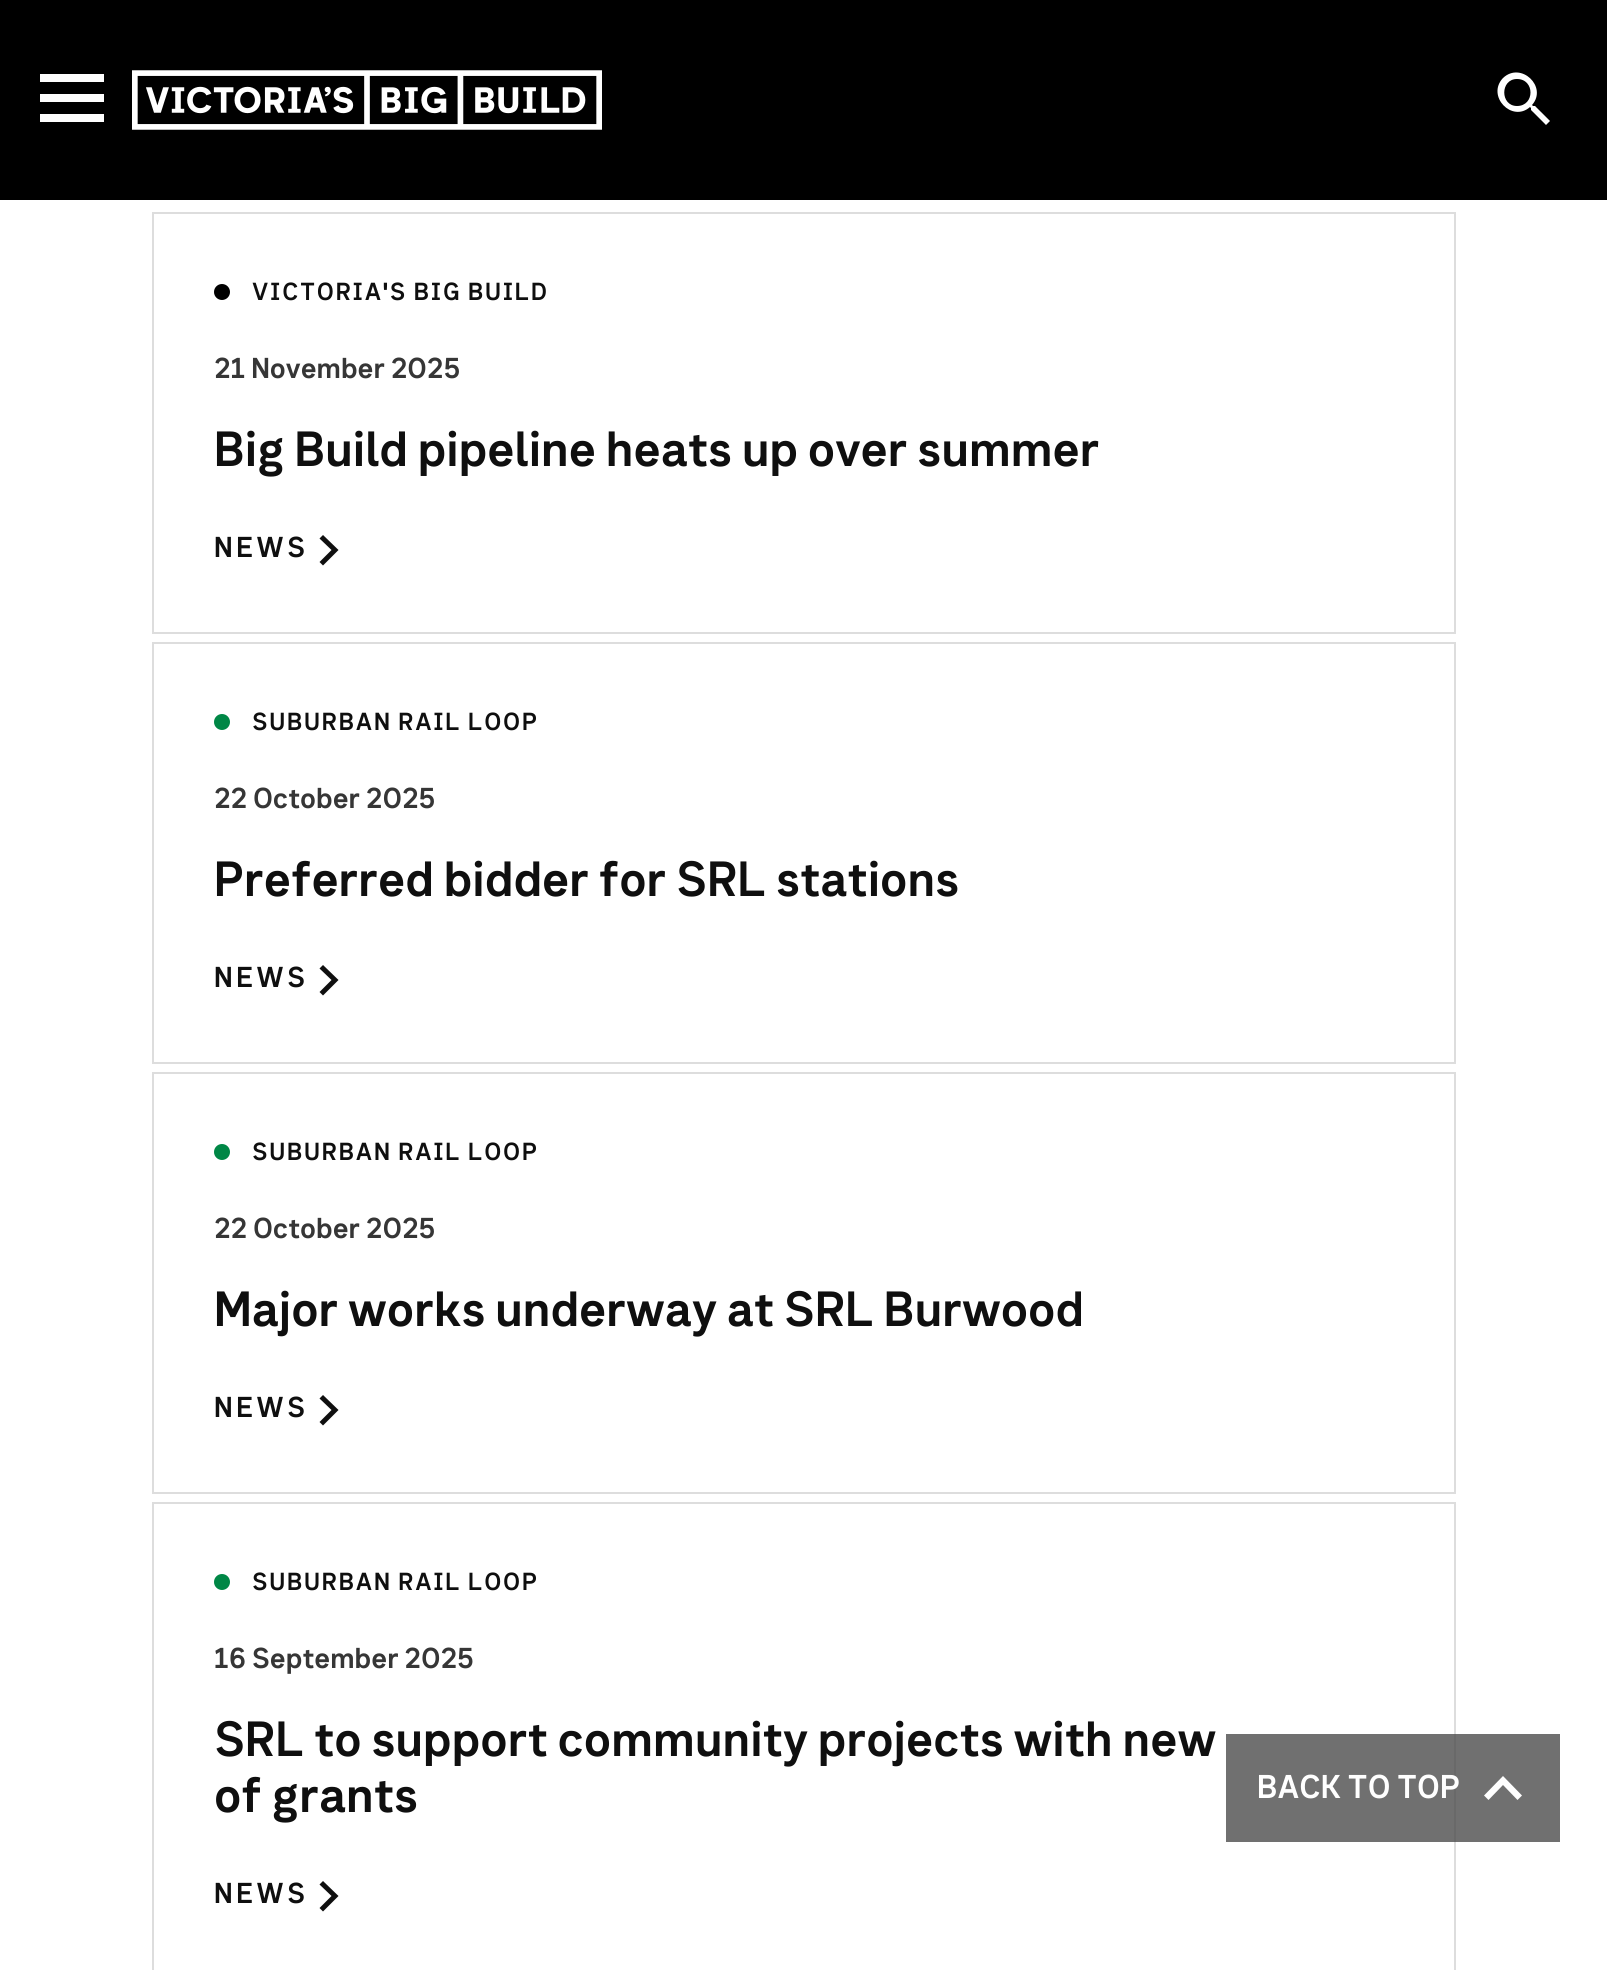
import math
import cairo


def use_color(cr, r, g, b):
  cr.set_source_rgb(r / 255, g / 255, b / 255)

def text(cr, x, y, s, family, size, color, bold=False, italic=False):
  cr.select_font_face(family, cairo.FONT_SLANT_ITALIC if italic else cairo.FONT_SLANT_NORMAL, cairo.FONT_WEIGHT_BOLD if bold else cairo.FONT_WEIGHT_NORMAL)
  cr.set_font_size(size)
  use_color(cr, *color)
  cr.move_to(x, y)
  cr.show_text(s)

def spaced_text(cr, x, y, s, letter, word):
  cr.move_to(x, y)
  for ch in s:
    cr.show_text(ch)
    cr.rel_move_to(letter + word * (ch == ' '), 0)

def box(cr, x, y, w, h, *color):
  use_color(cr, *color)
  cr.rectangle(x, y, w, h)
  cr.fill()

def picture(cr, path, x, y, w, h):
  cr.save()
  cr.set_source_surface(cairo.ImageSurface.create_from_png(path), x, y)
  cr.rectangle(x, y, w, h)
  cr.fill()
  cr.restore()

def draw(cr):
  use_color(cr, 255, 255, 255)
  cr.paint()
  box(cr, 0, 0, 1607, 200, 0, 0, 0)
  use_color(cr, 255, 255, 255)
  cr.set_fill_rule(cairo.FILL_RULE_EVEN_ODD)
  cr.new_path()
  cr.move_to(40, 122)
  cr.line_to(104, 122)
  cr.line_to(104, 114)
  cr.line_to(40, 114)
  cr.close_path()
  cr.move_to(40, 102)
  cr.line_to(104, 102)
  cr.line_to(104, 94)
  cr.line_to(40, 94)
  cr.close_path()
  cr.move_to(40, 82)
  cr.line_to(104, 82)
  cr.line_to(104, 74)
  cr.line_to(40, 74)
  cr.close_path()
  cr.fill()
  picture(cr, "img_01.png", 132, 70, 470, 60)
  cr.new_path()
  cr.move_to(1535, 106)
  cr.line_to(1533, 106)
  cr.line_to(1532, 105)
  cr.curve_to(1548, 87, 1521, 61, 1503, 78)
  cr.curve_to(1486, 96, 1512, 123, 1530, 107)
  cr.line_to(1531, 108)
  cr.line_to(1531, 110)
  cr.line_to(1546, 125)
  cr.line_to(1550, 121)
  cr.close_path()
  cr.move_to(1517, 106)
  cr.curve_to(1500, 106, 1500, 79, 1517, 79)
  cr.curve_to(1535, 79, 1535, 106, 1517, 106)
  cr.close_path()
  cr.fill()
  cr.rectangle(153, 213, 1302, 420)
  use_color(cr, 221, 221, 221)
  cr.stroke()
  use_color(cr, 0, 0, 0)
  cr.arc(222, 292, 8, 0, 2 * math.pi)
  cr.fill()
  use_color(cr, 15, 15, 15)
  cr.new_path()
  cr.move_to(319.5, 538.5)
  cr.line_to(331.5, 550)
  cr.line_to(319.5, 562)
  cr.line_to(323, 565.5)
  cr.line_to(338.5, 550)
  cr.line_to(323, 535)
  cr.line_to(319.5, 538.5)
  cr.fill()
  cr.rectangle(153, 643, 1302, 420)
  use_color(cr, 221, 221, 221)
  cr.stroke()
  use_color(cr, 0, 135, 70)
  cr.arc(222, 722, 8, 0, 2 * math.pi)
  cr.fill()
  use_color(cr, 15, 15, 15)
  cr.new_path()
  cr.move_to(319.5, 968.5)
  cr.line_to(331.5, 980)
  cr.line_to(319.5, 992)
  cr.line_to(323, 995.5)
  cr.line_to(338.5, 980)
  cr.line_to(323, 965)
  cr.line_to(319.5, 968.5)
  cr.fill()
  cr.rectangle(153, 1073, 1302, 420)
  use_color(cr, 221, 221, 221)
  cr.stroke()
  use_color(cr, 0, 135, 70)
  cr.arc(222, 1152, 8, 0, 2 * math.pi)
  cr.fill()
  use_color(cr, 15, 15, 15)
  cr.new_path()
  cr.move_to(319.5, 1398.5)
  cr.line_to(331.5, 1410)
  cr.line_to(319.5, 1422)
  cr.line_to(323, 1425.5)
  cr.line_to(338.5, 1410)
  cr.line_to(323, 1395)
  cr.line_to(319.5, 1398.5)
  cr.fill()
  cr.rectangle(153, 1503, 1302, 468)
  use_color(cr, 221, 221, 221)
  cr.stroke()
  use_color(cr, 0, 135, 70)
  cr.arc(222, 1582, 8, 0, 2 * math.pi)
  cr.fill()
  use_color(cr, 15, 15, 15)
  cr.new_path()
  cr.move_to(319.5, 1884.5)
  cr.line_to(331.5, 1896)
  cr.line_to(319.5, 1908)
  cr.line_to(323, 1911.5)
  cr.line_to(338.5, 1896)
  cr.line_to(323, 1881)
  cr.line_to(319.5, 1884.5)
  cr.fill()
  cr.set_source_rgba(0.298, 0.298, 0.298, 0.8)
  cr.rectangle(1226, 1734, 334, 108)
  cr.fill()
  use_color(cr, 255, 255, 255)
  cr.new_path()
  cr.move_to(1517.5, 1800)
  cr.line_to(1503, 1785)
  cr.line_to(1488.5, 1800)
  cr.line_to(1484, 1795.5)
  cr.line_to(1503, 1776)
  cr.line_to(1522, 1795.5)
  cr.line_to(1517.5, 1800)
  cr.fill()
  cr.select_font_face("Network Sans", cairo.FONT_SLANT_NORMAL, cairo.FONT_WEIGHT_BOLD)
  cr.set_font_size(24)
  use_color(cr, 15, 15, 15)
  spaced_text(cr, 252, 300, "VICTORIA'S BIG BUILD", 1.75, 0)
  text(cr, 214, 378, "21 November 2025", "Network Sans", 28, (54, 54, 54), bold=True)
  text(cr, 214, 466, "Big Build pipeline heats up over summer", "Network Sans", 48, (15, 15, 15), bold=True)
  cr.set_font_size(28)
  spaced_text(cr, 214, 557, "NEWS", 3.5, 0)
  cr.set_font_size(24)
  spaced_text(cr, 252, 730, "SUBURBAN RAIL LOOP", 1.75, 0)
  text(cr, 214, 808, "22 October 2025", "Network Sans", 28, (54, 54, 54), bold=True)
  text(cr, 214, 896, "Preferred bidder for SRL stations", "Network Sans", 48, (15, 15, 15), bold=True)
  cr.set_font_size(28)
  spaced_text(cr, 214, 987, "NEWS", 3.5, 0)
  cr.set_font_size(24)
  spaced_text(cr, 252, 1160, "SUBURBAN RAIL LOOP", 1.75, 0)
  text(cr, 214, 1238, "22 October 2025", "Network Sans", 28, (54, 54, 54), bold=True)
  text(cr, 214, 1326, "Major works underway at SRL Burwood", "Network Sans", 48, (15, 15, 15), bold=True)
  cr.set_font_size(28)
  spaced_text(cr, 214, 1417, "NEWS", 3.5, 0)
  cr.set_font_size(24)
  spaced_text(cr, 252, 1590, "SUBURBAN RAIL LOOP", 1.75, 0)
  text(cr, 214, 1668, "16 September 2025", "Network Sans", 28, (54, 54, 54), bold=True)
  text(cr, 214, 1756, "SRL to support community projects with new", "Network Sans", 48, (15, 15, 15), bold=True)
  text(cr, 214, 1812, "of grants", "Network Sans", 48, (15, 15, 15), bold=True)
  cr.set_font_size(28)
  spaced_text(cr, 214, 1903, "NEWS", 3.5, 0)
  text(cr, 1257, 1798, "BACK TO TOP", "Network Sans", 32, (255, 255, 255), bold=True)


surface = cairo.ImageSurface(cairo.FORMAT_RGB24, 1607, 1970)
cr = cairo.Context(surface)
options = cairo.FontOptions()
options.set_hint_metrics(cairo.HINT_METRICS_OFF)
options.set_hint_style(cairo.HINT_STYLE_NONE)
cr.set_font_options(options)
cr.set_miter_limit(4)
draw(cr)
surface.write_to_png("out.png")
